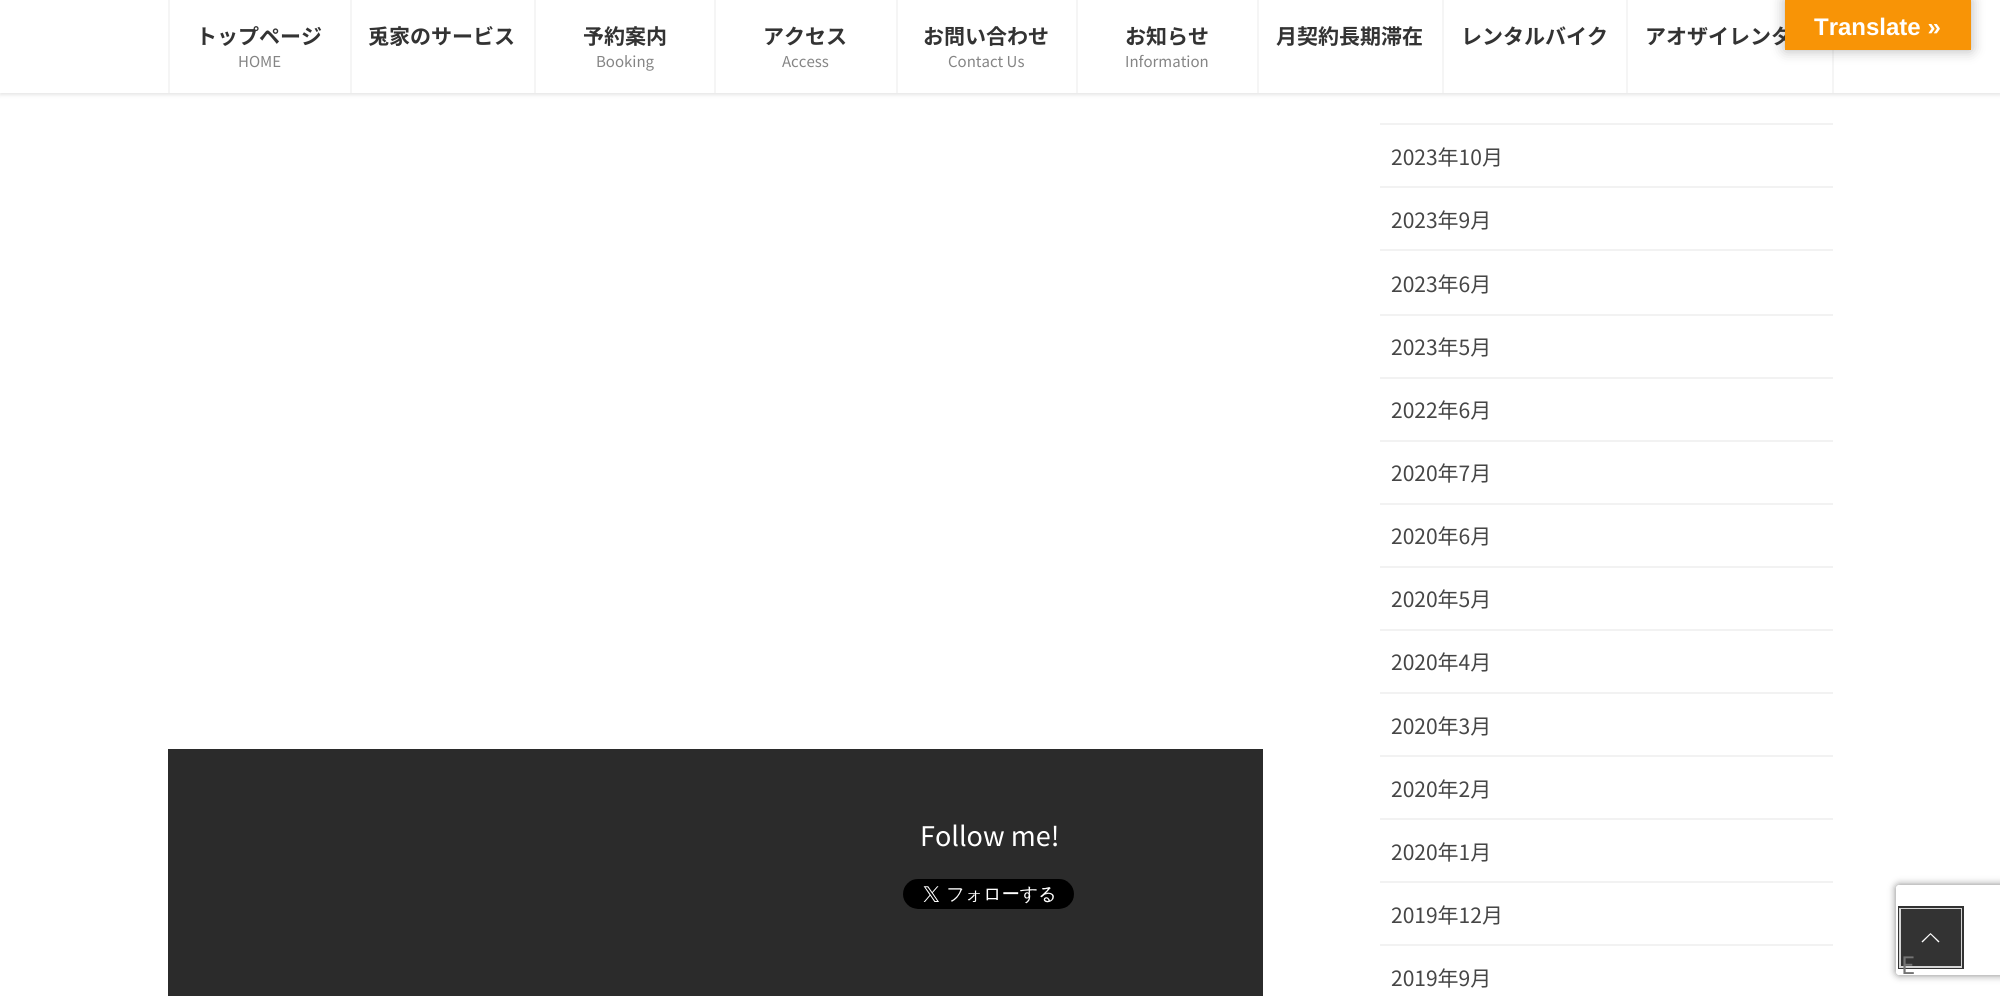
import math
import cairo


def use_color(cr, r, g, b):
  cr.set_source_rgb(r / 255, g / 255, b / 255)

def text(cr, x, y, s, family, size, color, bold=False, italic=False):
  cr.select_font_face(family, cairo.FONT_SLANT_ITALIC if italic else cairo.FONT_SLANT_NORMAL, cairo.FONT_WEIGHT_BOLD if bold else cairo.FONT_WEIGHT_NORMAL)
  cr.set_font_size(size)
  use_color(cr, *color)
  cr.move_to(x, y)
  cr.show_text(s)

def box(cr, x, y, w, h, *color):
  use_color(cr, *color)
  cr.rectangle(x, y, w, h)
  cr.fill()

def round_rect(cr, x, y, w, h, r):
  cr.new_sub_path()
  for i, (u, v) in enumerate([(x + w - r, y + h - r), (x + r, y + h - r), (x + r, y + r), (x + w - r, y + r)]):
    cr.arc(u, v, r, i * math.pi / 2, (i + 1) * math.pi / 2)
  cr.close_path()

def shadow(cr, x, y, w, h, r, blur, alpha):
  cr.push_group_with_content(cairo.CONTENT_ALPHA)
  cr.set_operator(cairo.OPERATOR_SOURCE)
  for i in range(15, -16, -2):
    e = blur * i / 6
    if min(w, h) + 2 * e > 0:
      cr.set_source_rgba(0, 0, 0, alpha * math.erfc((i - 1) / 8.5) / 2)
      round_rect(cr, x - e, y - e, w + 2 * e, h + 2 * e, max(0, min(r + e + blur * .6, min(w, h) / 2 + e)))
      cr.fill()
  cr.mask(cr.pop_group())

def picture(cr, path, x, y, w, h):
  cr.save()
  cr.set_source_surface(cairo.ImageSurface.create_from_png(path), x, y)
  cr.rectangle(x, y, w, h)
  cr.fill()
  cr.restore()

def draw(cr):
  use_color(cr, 255, 255, 255)
  cr.paint()
  use_color(cr, 0, 0, 0)
  shadow(cr, 0, 2, 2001, 93, 0, 2, 0.1)
  box(cr, 0, 0, 2000, 93, 255, 255, 255)
  box(cr, 168, 0, 2, 93, 245, 245, 245)
  box(cr, 350, 0, 2, 93, 245, 245, 245)
  box(cr, 534, 0, 2, 93, 245, 245, 245)
  box(cr, 714, 0, 2, 93, 245, 245, 245)
  box(cr, 896, 0, 2, 93, 245, 245, 245)
  box(cr, 1076, 0, 2, 93, 245, 245, 245)
  box(cr, 1257, 0, 2, 93, 245, 245, 245)
  box(cr, 1442, 0, 2, 93, 245, 245, 245)
  box(cr, 1832, 50, 2, 43, 245, 245, 245)
  box(cr, 1626, 0, 2, 93, 245, 245, 245)
  use_color(cr, 0, 0, 0)
  shadow(cr, 1785, 0, 186, 50, 0, 7, 0.3)
  box(cr, 168, 749, 1095, 247, 43, 43, 43)
  picture(cr, "img_01.png", 903, 879, 171, 30)
  box(cr, 1380, 123, 453, 2, 242, 242, 242)
  box(cr, 1380, 186, 453, 2, 242, 242, 242)
  box(cr, 1380, 249, 453, 2, 242, 242, 242)
  box(cr, 1380, 314, 453, 2, 242, 242, 242)
  box(cr, 1380, 377, 453, 2, 242, 242, 242)
  box(cr, 1380, 440, 453, 2, 242, 242, 242)
  box(cr, 1380, 503, 453, 2, 242, 242, 242)
  box(cr, 1380, 566, 453, 2, 242, 242, 242)
  box(cr, 1380, 629, 453, 2, 242, 242, 242)
  box(cr, 1380, 692, 453, 2, 242, 242, 242)
  box(cr, 1380, 755, 453, 2, 242, 242, 242)
  box(cr, 1380, 818, 453, 2, 242, 242, 242)
  box(cr, 1380, 881, 453, 2, 242, 242, 242)
  box(cr, 1380, 944, 453, 2, 242, 242, 242)
  cr.save()
  cr.set_fill_rule(cairo.FILL_RULE_EVEN_ODD)
  cr.new_path()
  cr.move_to(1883, 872)
  cr.line_to(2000, 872)
  cr.line_to(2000, 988)
  cr.line_to(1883, 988)
  cr.close_path()
  cr.move_to(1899, 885)
  cr.line_to(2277, 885)
  cr.curve_to(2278.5, 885, 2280, 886.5, 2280, 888)
  cr.line_to(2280, 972)
  cr.curve_to(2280, 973.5, 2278.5, 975, 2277, 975)
  cr.line_to(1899, 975)
  cr.curve_to(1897.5, 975, 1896, 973.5, 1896, 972)
  cr.line_to(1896, 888)
  cr.curve_to(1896, 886.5, 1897.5, 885, 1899, 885)
  cr.close_path()
  cr.clip()
  use_color(cr, 128, 128, 128)
  shadow(cr, 1896, 885, 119, 90, 3, 4, 1)
  cr.restore()
  cr.rectangle(1899.5, 907.5, 63, 60)
  use_color(cr, 51, 51, 51)
  cr.set_line_width(3)
  cr.stroke()
  cr.rectangle(1900, 909, 61, 58)
  cr.set_source_rgba(1, 1, 1, 0.8)
  cr.set_line_width(2)
  cr.stroke()
  box(cr, 1901, 909, 60, 57, 51, 51, 51)
  use_color(cr, 255, 255, 255)
  cr.new_path()
  cr.move_to(1939.5, 941.5)
  cr.line_to(1938.5, 942.5)
  cr.line_to(1930.5, 934.5)
  cr.line_to(1922.5, 942.5)
  cr.line_to(1921.5, 941.5)
  cr.line_to(1930.5, 933)
  cr.close_path()
  cr.fill()
  text(cr, 196, 44, "トップページ", "Noto Sans JP", 21, (51, 51, 51), bold=True)
  text(cr, 238, 67, "HOME", "Noto Sans JP", 15, (133, 133, 133))
  text(cr, 368, 44, "兎家のサービス", "Noto Sans JP", 21, (51, 51, 51), bold=True)
  text(cr, 583, 44, "予約案内", "Noto Sans JP", 21, (51, 51, 51), bold=True)
  text(cr, 596, 67, "Booking", "Noto Sans JP", 15, (133, 133, 133))
  text(cr, 763, 44, "アクセス", "Noto Sans JP", 21, (51, 51, 51), bold=True)
  text(cr, 782, 67, "Access", "Noto Sans JP", 15, (133, 133, 133))
  text(cr, 923, 44, "お問い合わせ", "Noto Sans JP", 21, (51, 51, 51), bold=True)
  text(cr, 948, 67, "Contact Us", "Noto Sans JP", 15, (133, 133, 133))
  text(cr, 1125, 44, "お知らせ", "Noto Sans JP", 21, (51, 51, 51), bold=True)
  text(cr, 1125, 67, "Information", "Noto Sans JP", 15, (133, 133, 133))
  text(cr, 1276, 44, "月契約長期滞在", "Noto Sans JP", 21, (51, 51, 51), bold=True)
  text(cr, 1461, 44, "レンタルバイク", "Noto Sans JP", 21, (51, 51, 51), bold=True)
  text(cr, 1645, 44, "アオザイレンタ", "Noto Sans JP", 21, (51, 51, 51), bold=True)
  box(cr, 1785, 0, 186, 50, 248, 148, 6)
  text(cr, 1814, 35, "Translate »", "Liberation Sans", 24, (255, 255, 255), bold=True)
  text(cr, 920, 846, "Follow me!", "Noto Sans JP", 27, (255, 255, 255))
  text(cr, 1391, 165, "2023年10月", "Noto Sans JP", 21, (70, 70, 70))
  text(cr, 1391, 228, "2023年9月", "Noto Sans JP", 21, (70, 70, 70))
  text(cr, 1391, 292, "2023年6月", "Noto Sans JP", 21, (70, 70, 70))
  text(cr, 1391, 355, "2023年5月", "Noto Sans JP", 21, (70, 70, 70))
  text(cr, 1391, 418, "2022年6月", "Noto Sans JP", 21, (70, 70, 70))
  text(cr, 1391, 481, "2020年7月", "Noto Sans JP", 21, (70, 70, 70))
  text(cr, 1391, 544, "2020年6月", "Noto Sans JP", 21, (70, 70, 70))
  text(cr, 1391, 607, "2020年5月", "Noto Sans JP", 21, (70, 70, 70))
  text(cr, 1391, 670, "2020年4月", "Noto Sans JP", 21, (70, 70, 70))
  text(cr, 1391, 734, "2020年3月", "Noto Sans JP", 21, (70, 70, 70))
  text(cr, 1391, 797, "2020年2月", "Noto Sans JP", 21, (70, 70, 70))
  text(cr, 1391, 860, "2020年1月", "Noto Sans JP", 21, (70, 70, 70))
  text(cr, 1391, 923, "2019年12月", "Noto Sans JP", 21, (70, 70, 70))
  text(cr, 1391, 986, "2019年9月", "Noto Sans JP", 21, (70, 70, 70))
  text(cr, 1901, 974, "E", "Noto Sans JP", 24, (115, 115, 115))


surface = cairo.ImageSurface(cairo.FORMAT_RGB24, 2000, 996)
cr = cairo.Context(surface)
options = cairo.FontOptions()
options.set_hint_metrics(cairo.HINT_METRICS_OFF)
options.set_hint_style(cairo.HINT_STYLE_NONE)
cr.set_font_options(options)
cr.set_miter_limit(4)
draw(cr)
surface.write_to_png("out.png")
